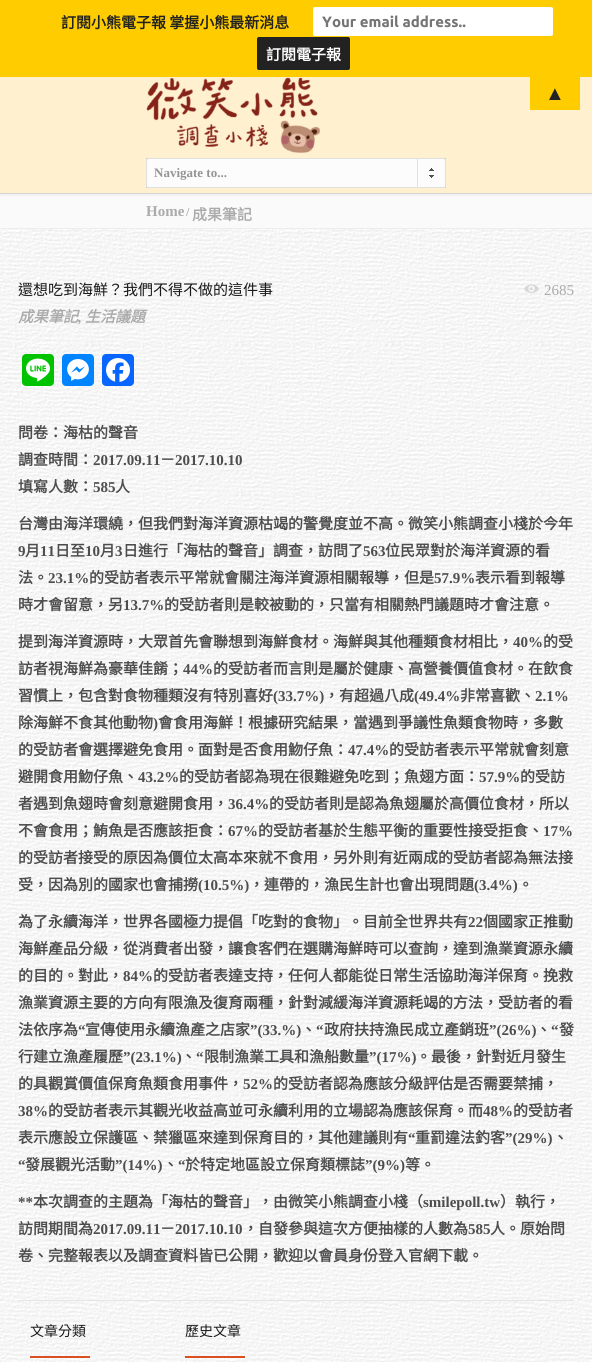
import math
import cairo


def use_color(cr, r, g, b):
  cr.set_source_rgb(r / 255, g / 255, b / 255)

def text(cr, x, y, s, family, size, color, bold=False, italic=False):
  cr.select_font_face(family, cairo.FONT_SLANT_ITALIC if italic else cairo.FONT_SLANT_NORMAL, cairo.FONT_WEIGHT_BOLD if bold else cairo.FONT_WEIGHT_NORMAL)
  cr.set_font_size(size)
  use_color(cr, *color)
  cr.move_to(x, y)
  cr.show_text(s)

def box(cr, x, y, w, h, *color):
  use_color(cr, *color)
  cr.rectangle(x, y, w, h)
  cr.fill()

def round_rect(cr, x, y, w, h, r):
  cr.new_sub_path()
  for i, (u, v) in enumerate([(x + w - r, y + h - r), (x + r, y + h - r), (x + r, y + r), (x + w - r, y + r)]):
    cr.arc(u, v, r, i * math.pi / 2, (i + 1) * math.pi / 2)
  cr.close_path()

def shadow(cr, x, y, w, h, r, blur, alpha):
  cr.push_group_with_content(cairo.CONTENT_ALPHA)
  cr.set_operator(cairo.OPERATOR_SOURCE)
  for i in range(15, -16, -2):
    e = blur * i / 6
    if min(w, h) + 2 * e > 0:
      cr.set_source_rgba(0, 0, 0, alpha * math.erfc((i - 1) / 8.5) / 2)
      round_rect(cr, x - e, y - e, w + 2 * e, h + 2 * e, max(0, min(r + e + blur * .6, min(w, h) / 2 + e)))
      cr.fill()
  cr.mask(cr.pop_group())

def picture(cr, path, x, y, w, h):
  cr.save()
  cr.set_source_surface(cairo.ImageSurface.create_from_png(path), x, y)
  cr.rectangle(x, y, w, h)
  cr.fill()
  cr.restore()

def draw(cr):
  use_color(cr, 255, 255, 255)
  cr.paint()
  box(cr, 0, 194, 592, 34, 250, 250, 250)
  use_color(cr, 0, 0, 0)
  shadow(cr, 0, 77, 592, 117, 0, 1.5, 0.1)
  box(cr, 0, 0, 592, 77, 255, 204, 0)
  use_color(cr, 255, 255, 255)
  round_rect(cr, 313.5, 7.5, 239, 28, 1.5)
  cr.fill_preserve()
  cr.set_line_width(1)
  cr.stroke()
  use_color(cr, 34, 34, 34)
  round_rect(cr, 257.5, 37.5, 92, 32, 1.5)
  cr.fill_preserve()
  cr.stroke()
  box(cr, 0, 77, 592, 116, 255, 240, 207)
  box(cr, 530, 77, 50, 33, 255, 204, 0)
  box(cr, 0, 193, 592, 1, 213, 213, 213)
  picture(cr, "img_01.png", 146, 77, 174, 76)
  round_rect(cr, 146.5, 158.5, 299, 29, 1.5)
  use_color(cr, 118, 118, 118)
  cr.stroke()
  use_color(cr, 252, 252, 252)
  round_rect(cr, 146.5, 158.5, 299, 29, 1.5)
  cr.fill_preserve()
  use_color(cr, 224, 224, 224)
  cr.stroke()
  picture(cr, "img_02.png", 429, 168, 5, 10)
  box(cr, 417, 158, 1, 29, 224, 224, 224)
  picture(cr, "img_03.png", 0, 229, 592, 1133)
  box(cr, 0, 228, 592, 1, 237, 237, 237)
  box(cr, 18, 1300, 556, 1, 229, 229, 229)
  picture(cr, "img_04.png", 524, 284, 15, 9)
  use_color(cr, 0, 195, 0)
  round_rect(cr, 22, 354, 32, 32, 4)
  cr.fill()
  picture(cr, "img_05.png", 26, 358, 24, 24)
  use_color(cr, 0, 132, 255)
  round_rect(cr, 62, 354, 32, 32, 4)
  cr.fill()
  picture(cr, "img_06.png", 67, 359, 22, 22)
  use_color(cr, 8, 102, 255)
  round_rect(cr, 102, 354, 32, 32, 4)
  cr.fill()
  picture(cr, "img_07.png", 106, 358, 24, 24)
  box(cr, 30, 1356, 60, 2, 217, 80, 35)
  box(cr, 185, 1356, 60, 2, 217, 80, 35)
  text(cr, 61, 28, "訂閱小熊電子報 掌握小熊最新消息", "Noto Sans CJK TC", 15, (34, 34, 34), bold=True)
  text(cr, 322, 27, "Your email address..", "Ubuntu", 15, (117, 117, 117), bold=True)
  text(cr, 266, 60, "訂閱電子報", "Noto Sans CJK TC", 15, (255, 255, 255), bold=True)
  text(cr, 545, 100, "▲", "Liberation Serif", 20, (34, 34, 34), bold=True)
  text(cr, 154, 177, "Navigate to...", "Liberation Serif", 13, (149, 149, 149), bold=True)
  text(cr, 146, 216, "Home", "Liberation Serif", 15, (171, 171, 171), bold=True)
  text(cr, 186, 216, "/", "Liberation Serif", 12, (171, 171, 171), bold=True)
  text(cr, 192, 220, "成果筆記", "Noto Sans CJK TC", 15, (171, 171, 171), bold=True)
  text(cr, 18, 295, "還想吃到海鮮？我們不得不做的這件事", "Noto Sans CJK TC", 15, (25, 25, 25))
  text(cr, 544, 295, "2685", "Liberation Serif", 15, (171, 171, 171))
  text(cr, 18, 322, "成果筆記", "Noto Sans CJK TC", 15, (171, 171, 171), bold=True, italic=True)
  text(cr, 85, 322, "生活議題", "Noto Sans CJK TC", 15, (171, 171, 171), bold=True, italic=True)
  text(cr, 78, 322, ",", "Liberation Serif", 15, (171, 171, 171), bold=True, italic=True)
  text(cr, 18, 438, "問卷：海枯的聲音", "Noto Sans CJK TC", 15, (77, 77, 77), bold=True)
  text(cr, 18, 465, "調查時間：", "Noto Sans CJK TC", 15, (77, 77, 77), bold=True)
  text(cr, 93, 465, "2017.09.11", "Liberation Serif", 15, (77, 77, 77), bold=True)
  text(cr, 160, 465, "－", "Noto Sans CJK TC", 15, (77, 77, 77), bold=True)
  text(cr, 175, 465, "2017.10.10", "Liberation Serif", 15, (77, 77, 77), bold=True)
  text(cr, 18, 492, "填寫人數：", "Noto Sans CJK TC", 15, (77, 77, 77), bold=True)
  text(cr, 93, 492, "585", "Liberation Serif", 15, (77, 77, 77), bold=True)
  text(cr, 115, 492, "人", "Noto Sans CJK TC", 15, (77, 77, 77), bold=True)
  text(cr, 18, 529, "台灣由海洋環繞，但我們對海洋資源枯竭的警覺度並不高。微笑小熊調查小棧於今年", "Noto Sans CJK TC", 15, (77, 77, 77), bold=True)
  text(cr, 18, 556, "9", "Liberation Serif", 15, (77, 77, 77), bold=True)
  text(cr, 25, 556, "月", "Noto Sans CJK TC", 15, (77, 77, 77), bold=True)
  text(cr, 40, 556, "11", "Liberation Serif", 15, (77, 77, 77), bold=True)
  text(cr, 55, 556, "日至", "Noto Sans CJK TC", 15, (77, 77, 77), bold=True)
  text(cr, 85, 556, "10", "Liberation Serif", 15, (77, 77, 77), bold=True)
  text(cr, 100, 556, "月", "Noto Sans CJK TC", 15, (77, 77, 77), bold=True)
  text(cr, 115, 556, "3", "Liberation Serif", 15, (77, 77, 77), bold=True)
  text(cr, 123, 556, "日進行「海枯的聲音」調查，訪問了", "Noto Sans CJK TC", 15, (77, 77, 77), bold=True)
  text(cr, 363, 556, "563", "Liberation Serif", 15, (77, 77, 77), bold=True)
  text(cr, 385, 556, "位民眾對於海洋資源的看", "Noto Sans CJK TC", 15, (77, 77, 77), bold=True)
  text(cr, 18, 583, "法。", "Noto Sans CJK TC", 15, (77, 77, 77), bold=True)
  text(cr, 48, 583, "23.1%", "Liberation Serif", 15, (77, 77, 77), bold=True)
  text(cr, 89, 583, "的受訪者表示平常就會關注海洋資源相關報導，但是", "Noto Sans CJK TC", 15, (77, 77, 77), bold=True)
  text(cr, 434, 583, "57.9%", "Liberation Serif", 15, (77, 77, 77), bold=True)
  text(cr, 475, 583, "表示看到報導", "Noto Sans CJK TC", 15, (77, 77, 77), bold=True)
  text(cr, 18, 610, "時才會留意，另", "Noto Sans CJK TC", 15, (77, 77, 77), bold=True)
  text(cr, 123, 610, "13.7%", "Liberation Serif", 15, (77, 77, 77), bold=True)
  text(cr, 164, 610, "的受訪者則是較被動的，只當有相關熱門議題時才會注意。", "Noto Sans CJK TC", 15, (77, 77, 77), bold=True)
  text(cr, 18, 647, "提到海洋資源時，大眾首先會聯想到海鮮食材。海鮮與其他種類食材相比，", "Noto Sans CJK TC", 15, (77, 77, 77), bold=True)
  text(cr, 513, 647, "40%", "Liberation Serif", 15, (77, 77, 77), bold=True)
  text(cr, 543, 647, "的受", "Noto Sans CJK TC", 15, (77, 77, 77), bold=True)
  text(cr, 18, 674, "訪者視海鮮為豪華佳餚；", "Noto Sans CJK TC", 15, (77, 77, 77), bold=True)
  text(cr, 183, 674, "44%", "Liberation Serif", 15, (77, 77, 77), bold=True)
  text(cr, 213, 674, "的受訪者而言則是屬於健康、高營養價值食材。在飲食", "Noto Sans CJK TC", 15, (77, 77, 77), bold=True)
  text(cr, 18, 701, "習慣上，包含對食物種類沒有特別喜好", "Noto Sans CJK TC", 15, (77, 77, 77), bold=True)
  text(cr, 273, 701, "(33.7%)", "Liberation Serif", 15, (77, 77, 77), bold=True)
  text(cr, 324, 701, "，有超過八成", "Noto Sans CJK TC", 15, (77, 77, 77), bold=True)
  text(cr, 414, 701, "(49.4%", "Liberation Serif", 15, (77, 77, 77), bold=True)
  text(cr, 460, 701, "非常喜歡、", "Noto Sans CJK TC", 15, (77, 77, 77), bold=True)
  text(cr, 535, 701, "2.1%", "Liberation Serif", 15, (77, 77, 77), bold=True)
  text(cr, 18, 728, "除海鮮不食其他動物", "Noto Sans CJK TC", 15, (77, 77, 77), bold=True)
  text(cr, 153, 728, ")", "Liberation Serif", 15, (77, 77, 77), bold=True)
  text(cr, 158, 728, "會食用海鮮！根據研究結果，當遇到爭議性魚類食物時，多數", "Noto Sans CJK TC", 15, (77, 77, 77), bold=True)
  text(cr, 18, 755, "的受訪者會選擇避免食用。面對是否食用魩仔魚：", "Noto Sans CJK TC", 15, (77, 77, 77), bold=True)
  text(cr, 348, 755, "47.4%", "Liberation Serif", 15, (77, 77, 77), bold=True)
  text(cr, 389, 755, "的受訪者表示平常就會刻意", "Noto Sans CJK TC", 15, (77, 77, 77), bold=True)
  text(cr, 18, 782, "避開食用魩仔魚、", "Noto Sans CJK TC", 15, (77, 77, 77), bold=True)
  text(cr, 138, 782, "43.2%", "Liberation Serif", 15, (77, 77, 77), bold=True)
  text(cr, 179, 782, "的受訪者認為現在很難避免吃到；魚翅方面：", "Noto Sans CJK TC", 15, (77, 77, 77), bold=True)
  text(cr, 479, 782, "57.9%", "Liberation Serif", 15, (77, 77, 77), bold=True)
  text(cr, 520, 782, "的受訪", "Noto Sans CJK TC", 15, (77, 77, 77), bold=True)
  text(cr, 18, 809, "者遇到魚翅時會刻意避開食用，", "Noto Sans CJK TC", 15, (77, 77, 77), bold=True)
  text(cr, 228, 809, "36.4%", "Liberation Serif", 15, (77, 77, 77), bold=True)
  text(cr, 269, 809, "的受訪者則是認為魚翅屬於高價位食材，所以", "Noto Sans CJK TC", 15, (77, 77, 77), bold=True)
  text(cr, 18, 836, "不會食用；鮪魚是否應該拒食：", "Noto Sans CJK TC", 15, (77, 77, 77), bold=True)
  text(cr, 228, 836, "67%", "Liberation Serif", 15, (77, 77, 77), bold=True)
  text(cr, 258, 836, "的受訪者基於生態平衡的重要性接受拒食、", "Noto Sans CJK TC", 15, (77, 77, 77), bold=True)
  text(cr, 543, 836, "17%", "Liberation Serif", 15, (77, 77, 77), bold=True)
  text(cr, 18, 863, "的受訪者接受的原因為價位太高本來就不食用，另外則有近兩成的受訪者認為無法接", "Noto Sans CJK TC", 15, (77, 77, 77), bold=True)
  text(cr, 18, 890, "受，因為別的國家也會捕撈", "Noto Sans CJK TC", 15, (77, 77, 77), bold=True)
  text(cr, 198, 890, "(10.5%)", "Liberation Serif", 15, (77, 77, 77), bold=True)
  text(cr, 249, 890, "，連帶的，漁民生計也會出現問題", "Noto Sans CJK TC", 15, (77, 77, 77), bold=True)
  text(cr, 474, 890, "(3.4%)", "Liberation Serif", 15, (77, 77, 77), bold=True)
  text(cr, 518, 890, "。", "Noto Sans CJK TC", 15, (77, 77, 77), bold=True)
  text(cr, 18, 927, "為了永續海洋，世界各國極力提倡「吃對的食物」。目前全世界共有", "Noto Sans CJK TC", 15, (77, 77, 77), bold=True)
  text(cr, 468, 927, "22", "Liberation Serif", 15, (77, 77, 77), bold=True)
  text(cr, 483, 927, "個國家正推動", "Noto Sans CJK TC", 15, (77, 77, 77), bold=True)
  text(cr, 18, 954, "海鮮產品分級，從消費者出發，讓食客們在選購海鮮時可以查詢，達到漁業資源永續", "Noto Sans CJK TC", 15, (77, 77, 77), bold=True)
  text(cr, 18, 981, "的目的。對此，", "Noto Sans CJK TC", 15, (77, 77, 77), bold=True)
  text(cr, 123, 981, "84%", "Liberation Serif", 15, (77, 77, 77), bold=True)
  text(cr, 153, 981, "的受訪者表達支持，任何人都能從日常生活協助海洋保育。挽救", "Noto Sans CJK TC", 15, (77, 77, 77), bold=True)
  text(cr, 18, 1008, "漁業資源主要的方向有限漁及復育兩種，針對減緩海洋資源耗竭的方法，受訪者的看", "Noto Sans CJK TC", 15, (77, 77, 77), bold=True)
  text(cr, 18, 1035, "法依序為", "Noto Sans CJK TC", 15, (77, 77, 77), bold=True)
  text(cr, 78, 1035, "“", "Liberation Serif", 15, (77, 77, 77), bold=True)
  text(cr, 85, 1035, "宣傳使用永續漁產之店家", "Noto Sans CJK TC", 15, (77, 77, 77), bold=True)
  text(cr, 250, 1035, "”(33.%)", "Liberation Serif", 15, (77, 77, 77), bold=True)
  text(cr, 301, 1035, "、", "Noto Sans CJK TC", 15, (77, 77, 77), bold=True)
  text(cr, 316, 1035, "“", "Liberation Serif", 15, (77, 77, 77), bold=True)
  text(cr, 324, 1035, "政府扶持漁民成立產銷班", "Noto Sans CJK TC", 15, (77, 77, 77), bold=True)
  text(cr, 489, 1035, "”(26%)", "Liberation Serif", 15, (77, 77, 77), bold=True)
  text(cr, 536, 1035, "、", "Noto Sans CJK TC", 15, (77, 77, 77), bold=True)
  text(cr, 551, 1035, "“", "Liberation Serif", 15, (77, 77, 77), bold=True)
  text(cr, 559, 1035, "發", "Noto Sans CJK TC", 15, (77, 77, 77), bold=True)
  text(cr, 18, 1062, "行建立漁產履歷", "Noto Sans CJK TC", 15, (77, 77, 77), bold=True)
  text(cr, 123, 1062, "”(23.1%)", "Liberation Serif", 15, (77, 77, 77), bold=True)
  text(cr, 181, 1062, "、", "Noto Sans CJK TC", 15, (77, 77, 77), bold=True)
  text(cr, 196, 1062, "“", "Liberation Serif", 15, (77, 77, 77), bold=True)
  text(cr, 204, 1062, "限制漁業工具和漁船數量", "Noto Sans CJK TC", 15, (77, 77, 77), bold=True)
  text(cr, 369, 1062, "”(17%)", "Liberation Serif", 15, (77, 77, 77), bold=True)
  text(cr, 416, 1062, "。最後，針對近月發生", "Noto Sans CJK TC", 15, (77, 77, 77), bold=True)
  text(cr, 18, 1089, "的具觀賞價值保育魚類食用事件，", "Noto Sans CJK TC", 15, (77, 77, 77), bold=True)
  text(cr, 243, 1089, "52%", "Liberation Serif", 15, (77, 77, 77), bold=True)
  text(cr, 273, 1089, "的受訪者認為應該分級評估是否需要禁捕，", "Noto Sans CJK TC", 15, (77, 77, 77), bold=True)
  text(cr, 18, 1116, "38%", "Liberation Serif", 15, (77, 77, 77), bold=True)
  text(cr, 48, 1116, "的受訪者表示其觀光收益高並可永續利用的立場認為應該保育。而", "Noto Sans CJK TC", 15, (77, 77, 77), bold=True)
  text(cr, 483, 1116, "48%", "Liberation Serif", 15, (77, 77, 77), bold=True)
  text(cr, 513, 1116, "的受訪者", "Noto Sans CJK TC", 15, (77, 77, 77), bold=True)
  text(cr, 18, 1143, "表示應設立保護區、禁獵區來達到保育目的，其他建議則有", "Noto Sans CJK TC", 15, (77, 77, 77), bold=True)
  text(cr, 408, 1143, "“", "Liberation Serif", 15, (77, 77, 77), bold=True)
  text(cr, 415, 1143, "重罰違法釣客", "Noto Sans CJK TC", 15, (77, 77, 77), bold=True)
  text(cr, 505, 1143, "”(29%)", "Liberation Serif", 15, (77, 77, 77), bold=True)
  text(cr, 553, 1143, "、", "Noto Sans CJK TC", 15, (77, 77, 77), bold=True)
  text(cr, 18, 1170, "“", "Liberation Serif", 15, (77, 77, 77), bold=True)
  text(cr, 25, 1170, "發展觀光活動", "Noto Sans CJK TC", 15, (77, 77, 77), bold=True)
  text(cr, 115, 1170, "”(14%)", "Liberation Serif", 15, (77, 77, 77), bold=True)
  text(cr, 163, 1170, "、", "Noto Sans CJK TC", 15, (77, 77, 77), bold=True)
  text(cr, 178, 1170, "“", "Liberation Serif", 15, (77, 77, 77), bold=True)
  text(cr, 185, 1170, "於特定地區設立保育類標誌", "Noto Sans CJK TC", 15, (77, 77, 77), bold=True)
  text(cr, 365, 1170, "”(9%)", "Liberation Serif", 15, (77, 77, 77), bold=True)
  text(cr, 405, 1170, "等。", "Noto Sans CJK TC", 15, (77, 77, 77), bold=True)
  text(cr, 18, 1207, "**", "Liberation Serif", 15, (77, 77, 77), bold=True)
  text(cr, 33, 1207, "本次調查的主題為「海枯的聲音」，由微笑小熊調查小棧（", "Noto Sans CJK TC", 15, (77, 77, 77), bold=True)
  text(cr, 423, 1207, "smilepoll.tw", "Liberation Serif", 15, (77, 77, 77), bold=True)
  text(cr, 500, 1207, "）執行，", "Noto Sans CJK TC", 15, (77, 77, 77), bold=True)
  text(cr, 18, 1234, "訪問期間為", "Noto Sans CJK TC", 15, (77, 77, 77), bold=True)
  text(cr, 93, 1234, "2017.09.11", "Liberation Serif", 15, (77, 77, 77), bold=True)
  text(cr, 160, 1234, "－", "Noto Sans CJK TC", 15, (77, 77, 77), bold=True)
  text(cr, 175, 1234, "2017.10.10", "Liberation Serif", 15, (77, 77, 77), bold=True)
  text(cr, 243, 1234, "，自發參與這次方便抽樣的人數為", "Noto Sans CJK TC", 15, (77, 77, 77), bold=True)
  text(cr, 468, 1234, "585", "Liberation Serif", 15, (77, 77, 77), bold=True)
  text(cr, 490, 1234, "人。原始問", "Noto Sans CJK TC", 15, (77, 77, 77), bold=True)
  text(cr, 18, 1261, "卷、完整報表以及調查資料皆已公開，歡迎以會員身份登入官網下載。", "Noto Sans CJK TC", 15, (77, 77, 77), bold=True)
  text(cr, 30, 1336, "文章分類", "Noto Sans CJK TC", 14, (25, 25, 25))
  text(cr, 185, 1336, "歷史文章", "Noto Sans CJK TC", 14, (25, 25, 25))


surface = cairo.ImageSurface(cairo.FORMAT_RGB24, 592, 1362)
cr = cairo.Context(surface)
options = cairo.FontOptions()
options.set_hint_metrics(cairo.HINT_METRICS_OFF)
options.set_hint_style(cairo.HINT_STYLE_NONE)
cr.set_font_options(options)
cr.set_miter_limit(4)
draw(cr)
surface.write_to_png("out.png")
